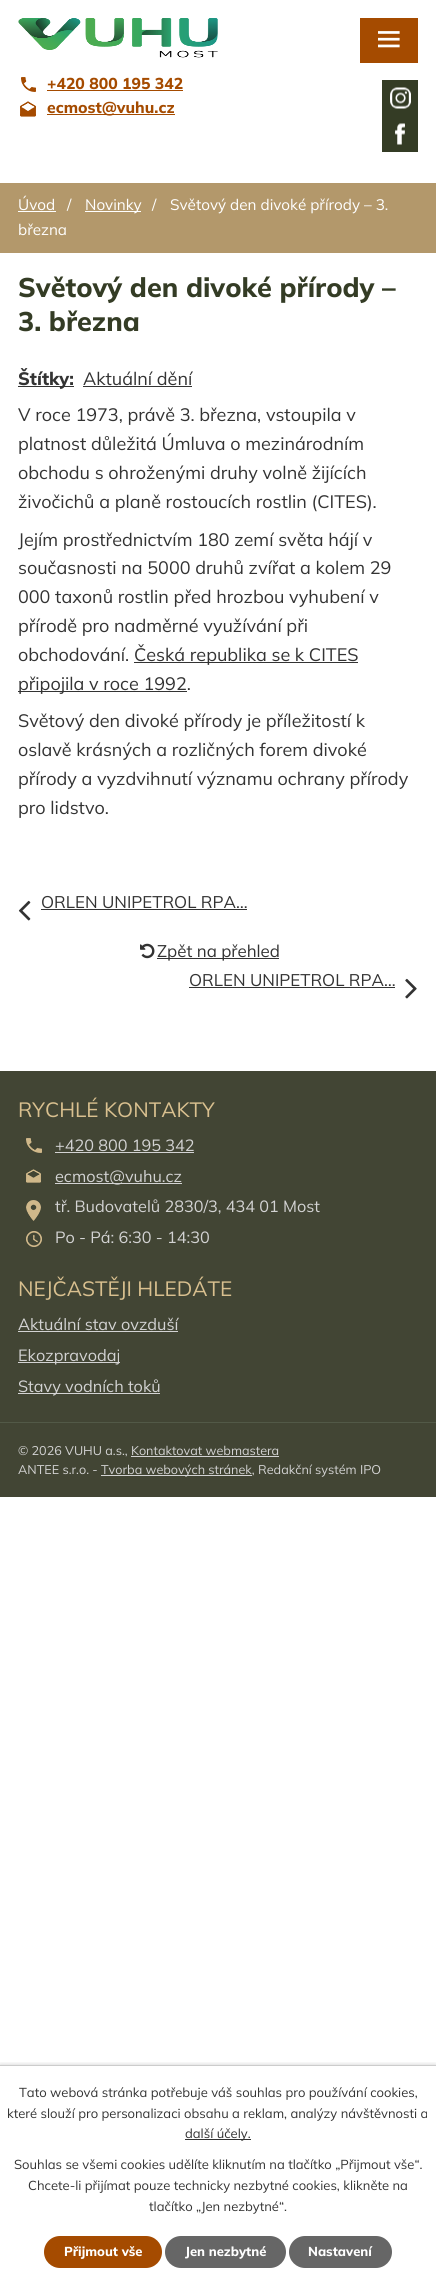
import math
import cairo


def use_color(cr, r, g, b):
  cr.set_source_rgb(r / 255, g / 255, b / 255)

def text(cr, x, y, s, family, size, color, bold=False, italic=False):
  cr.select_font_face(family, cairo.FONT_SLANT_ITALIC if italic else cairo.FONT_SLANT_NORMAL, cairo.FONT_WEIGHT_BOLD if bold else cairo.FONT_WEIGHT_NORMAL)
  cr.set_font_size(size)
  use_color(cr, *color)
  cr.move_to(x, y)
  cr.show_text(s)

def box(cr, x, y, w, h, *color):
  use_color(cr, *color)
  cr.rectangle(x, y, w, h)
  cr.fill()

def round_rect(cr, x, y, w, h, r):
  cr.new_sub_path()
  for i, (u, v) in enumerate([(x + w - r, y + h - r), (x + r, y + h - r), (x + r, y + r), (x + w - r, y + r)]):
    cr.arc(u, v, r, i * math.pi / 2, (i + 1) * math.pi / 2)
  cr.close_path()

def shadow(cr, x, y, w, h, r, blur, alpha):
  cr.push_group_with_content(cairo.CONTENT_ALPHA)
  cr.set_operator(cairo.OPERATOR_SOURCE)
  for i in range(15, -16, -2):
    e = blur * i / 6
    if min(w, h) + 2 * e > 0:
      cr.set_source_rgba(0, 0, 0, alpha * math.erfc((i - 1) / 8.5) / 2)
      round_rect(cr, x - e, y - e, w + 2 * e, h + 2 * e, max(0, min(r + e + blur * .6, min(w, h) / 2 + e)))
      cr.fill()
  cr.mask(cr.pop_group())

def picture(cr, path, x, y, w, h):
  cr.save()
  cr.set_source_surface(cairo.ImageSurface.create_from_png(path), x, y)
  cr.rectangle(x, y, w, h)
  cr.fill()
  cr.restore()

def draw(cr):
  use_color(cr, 255, 255, 255)
  cr.paint()
  box(cr, 360, 18, 58, 45, 165, 75, 0)
  picture(cr, "img_01.png", 378, 31, 22, 17)
  picture(cr, "img_02.png", 18, 18, 200, 40)
  picture(cr, "img_03.png", 21, 77, 15, 15)
  box(cr, 47, 90, 136, 1, 165, 75, 0)
  picture(cr, "img_04.png", 20, 101, 16, 16)
  box(cr, 47, 114, 128, 1, 165, 75, 0)
  box(cr, 382, 80, 36, 72, 52, 60, 37)
  picture(cr, "img_05.png", 390, 87, 21, 22)
  picture(cr, "img_06.png", 395, 123, 10, 22)
  box(cr, 0, 183, 436, 70, 179, 152, 107)
  box(cr, 18, 211, 38, 1, 255, 255, 255)
  box(cr, 85, 211, 56, 1, 255, 255, 255)
  box(cr, 18, 386, 56, 1, 51, 51, 51)
  box(cr, 83, 386, 109, 1, 51, 51, 51)
  box(cr, 134, 662, 224, 1, 51, 51, 51)
  box(cr, 18, 691, 169, 1, 51, 51, 51)
  picture(cr, "img_07.png", 18, 900, 13, 21)
  box(cr, 41, 909, 206, 1, 51, 51, 51)
  picture(cr, "img_08.png", 140, 943, 15, 16)
  box(cr, 157, 958, 122, 1, 51, 51, 51)
  box(cr, 189, 987, 206, 1, 51, 51, 51)
  picture(cr, "img_09.png", 405, 978, 12, 21)
  box(cr, 0, 1071, 436, 426, 66, 69, 52)
  picture(cr, "img_10.png", 26, 1138, 16, 15)
  box(cr, 55, 1152, 139, 1, 211, 211, 211)
  picture(cr, "img_11.png", 26, 1169, 15, 14)
  box(cr, 55, 1183, 127, 1, 211, 211, 211)
  picture(cr, "img_12.png", 26, 1200, 15, 21)
  picture(cr, "img_13.png", 26, 1231, 16, 16)
  box(cr, 18, 1331, 160, 1, 211, 211, 211)
  box(cr, 18, 1362, 102, 1, 211, 211, 211)
  box(cr, 18, 1393, 142, 1, 211, 211, 211)
  box(cr, 0, 1422, 436, 1, 82, 89, 71)
  box(cr, 131, 1456, 148, 1, 211, 211, 211)
  box(cr, 101, 1475, 151, 1, 211, 211, 211)
  cr.save()
  cr.rectangle(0, 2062, 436, 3)
  cr.clip()
  use_color(cr, 0, 0, 0)
  shadow(cr, 0, 2065, 436, 218, 0, 2.5, 0.2)
  cr.restore()
  box(cr, 0, 2065, 436, 1, 204, 204, 204)
  box(cr, 185, 2139, 66, 1, 51, 51, 51)
  use_color(cr, 165, 75, 0)
  round_rect(cr, 44, 2236, 118, 32, 16)
  cr.fill()
  use_color(cr, 102, 102, 102)
  round_rect(cr, 165, 2236, 121, 32, 16)
  cr.fill()
  round_rect(cr, 289, 2236, 103, 32, 16)
  cr.fill()
  text(cr, 47, 89, "+420 800 195 342", "Mulish ExtraBold", 15.75, (165, 75, 0))
  text(cr, 47, 113, "ecmost@vuhu.cz", "Mulish ExtraBold", 15.75, (165, 75, 0))
  text(cr, 18, 210, "Úvod", "Mulish", 15.25, (255, 255, 255))
  text(cr, 67, 210, "/", "Mulish", 15.25, (255, 255, 255))
  text(cr, 85, 210, "Novinky", "Mulish", 15.25, (255, 255, 255))
  text(cr, 152, 210, "/", "Mulish", 15.25, (255, 255, 255))
  text(cr, 170, 210, "Světový den divoké přírody – 3.", "Mulish", 15.25, (255, 255, 255))
  text(cr, 18, 235, "března", "Mulish", 15.25, (255, 255, 255))
  text(cr, 18, 297, "Světový den divoké přírody –", "Mulish ExtraBold", 27, (52, 60, 37))
  text(cr, 18, 331, "3. března", "Mulish ExtraBold", 27, (52, 60, 37))
  text(cr, 18, 385, "Štítky:", "Mulish ExtraBold", 18, (51, 51, 51))
  text(cr, 83, 385, "Aktuální dění", "Mulish", 18, (51, 51, 51))
  text(cr, 18, 421, "V roce 1973, právě 3. března, vstoupila v", "Mulish", 18, (51, 51, 51))
  text(cr, 18, 450, "platnost důležitá Úmluva o mezinárodním", "Mulish", 18, (51, 51, 51))
  text(cr, 18, 479, "obchodu s ohroženými druhy volně žijících", "Mulish", 18, (51, 51, 51))
  text(cr, 18, 508, "živočichů a planě rostoucích rostlin (CITES).", "Mulish", 18, (51, 51, 51))
  text(cr, 18, 546, "Jejím prostřednictvím 180 zemí světa hájí v", "Mulish", 18, (51, 51, 51))
  text(cr, 18, 574, "současnosti na 5000 druhů zvířat a kolem 29", "Mulish", 18, (51, 51, 51))
  text(cr, 18, 603, "000 taxonů rostlin před hrozbou vyhubení v", "Mulish", 18, (51, 51, 51))
  text(cr, 18, 632, "přírodě pro nadměrné využívání při", "Mulish", 18, (51, 51, 51))
  text(cr, 18, 661, "obchodování.", "Mulish", 18, (51, 51, 51))
  text(cr, 134, 661, "Česká republika se k CITES", "Mulish", 18, (51, 51, 51))
  text(cr, 18, 690, "připojila v roce 1992.", "Mulish", 18, (51, 51, 51))
  text(cr, 18, 727, "Světový den divoké přírody je příležitostí k", "Mulish", 18, (51, 51, 51))
  text(cr, 18, 756, "oslavě krásných a rozličných forem divoké", "Mulish", 18, (51, 51, 51))
  text(cr, 18, 785, "přírody a vyzdvihnutí významu ochrany přírody", "Mulish", 18, (51, 51, 51))
  text(cr, 18, 814, "pro lidstvo.", "Mulish", 18, (51, 51, 51))
  text(cr, 41, 908, "ORLEN UNIPETROL RPA…", "Mulish", 16.9, (51, 51, 51))
  text(cr, 157, 957, "Zpět na přehled", "Mulish", 16.9, (51, 51, 51))
  text(cr, 189, 986, "ORLEN UNIPETROL RPA…", "Mulish", 16.9, (51, 51, 51))
  text(cr, 18, 1117, "RYCHLÉ KONTAKTY", "Mulish", 20.75, (217, 192, 143))
  text(cr, 55, 1151, "+420 800 195 342", "Mulish", 16.25, (211, 211, 211))
  text(cr, 55, 1182, "ecmost@vuhu.cz", "Mulish", 16.25, (211, 211, 211))
  text(cr, 55, 1212, "tř. Budovatelů 2830/3, 434 01 Most", "Mulish", 16.25, (211, 211, 211))
  text(cr, 55, 1243, "Po - Pá: 6:30 - 14:30", "Mulish", 16.25, (211, 211, 211))
  text(cr, 18, 1296, "NEJČASTĚJI HLEDÁTE", "Mulish", 20.75, (217, 192, 143))
  text(cr, 18, 1330, "Aktuální stav ovzduší", "Mulish", 16.25, (211, 211, 211))
  text(cr, 18, 1361, "Ekozpravodaj", "Mulish", 16.25, (211, 211, 211))
  text(cr, 18, 1392, "Stavy vodních toků", "Mulish", 16.25, (211, 211, 211))
  text(cr, 18, 1455, "© 2026 VUHU a.s., Kontaktovat webmastera", "Mulish", 12.6, (211, 211, 211))
  text(cr, 18, 1474, "ANTEE s.r.o. -", "Mulish", 12.6, (211, 211, 211))
  text(cr, 101, 1474, "Tvorba webových stránek, Redakční systém IPO", "Mulish", 12.6, (211, 211, 211))
  text(cr, 19, 2097, "Tato webová stránka potřebuje váš souhlas pro používání cookies,", "Mulish", 13, (51, 51, 51))
  text(cr, 7, 2118, "které slouží pro personalizaci obsahu a reklam, analýzy návštěvnosti a", "Mulish", 13, (51, 51, 51))
  text(cr, 185, 2138, "další účely.", "Mulish", 13, (51, 51, 51))
  text(cr, 14, 2169, "Souhlas se všemi cookies udělíte kliknutím na tlačítko „Přijmout vše“.", "Mulish", 13, (51, 51, 51))
  text(cr, 28, 2190, "Chcete-li přijímat pouze technicky nezbytné cookies, klikněte na", "Mulish", 13, (51, 51, 51))
  text(cr, 149, 2211, "tlačítko „Jen nezbytné“.", "Mulish", 13, (51, 51, 51))
  text(cr, 64, 2256, "Přijmout vše", "Mulish ExtraBold", 13, (255, 255, 255))
  text(cr, 185, 2256, "Jen nezbytné", "Mulish ExtraBold", 13, (255, 255, 255))
  text(cr, 308, 2256, "Nastavení", "Mulish ExtraBold", 13, (255, 255, 255))


surface = cairo.ImageSurface(cairo.FORMAT_RGB24, 436, 2283)
cr = cairo.Context(surface)
options = cairo.FontOptions()
options.set_hint_metrics(cairo.HINT_METRICS_OFF)
options.set_hint_style(cairo.HINT_STYLE_NONE)
cr.set_font_options(options)
cr.set_miter_limit(4)
draw(cr)
surface.write_to_png("out.png")
